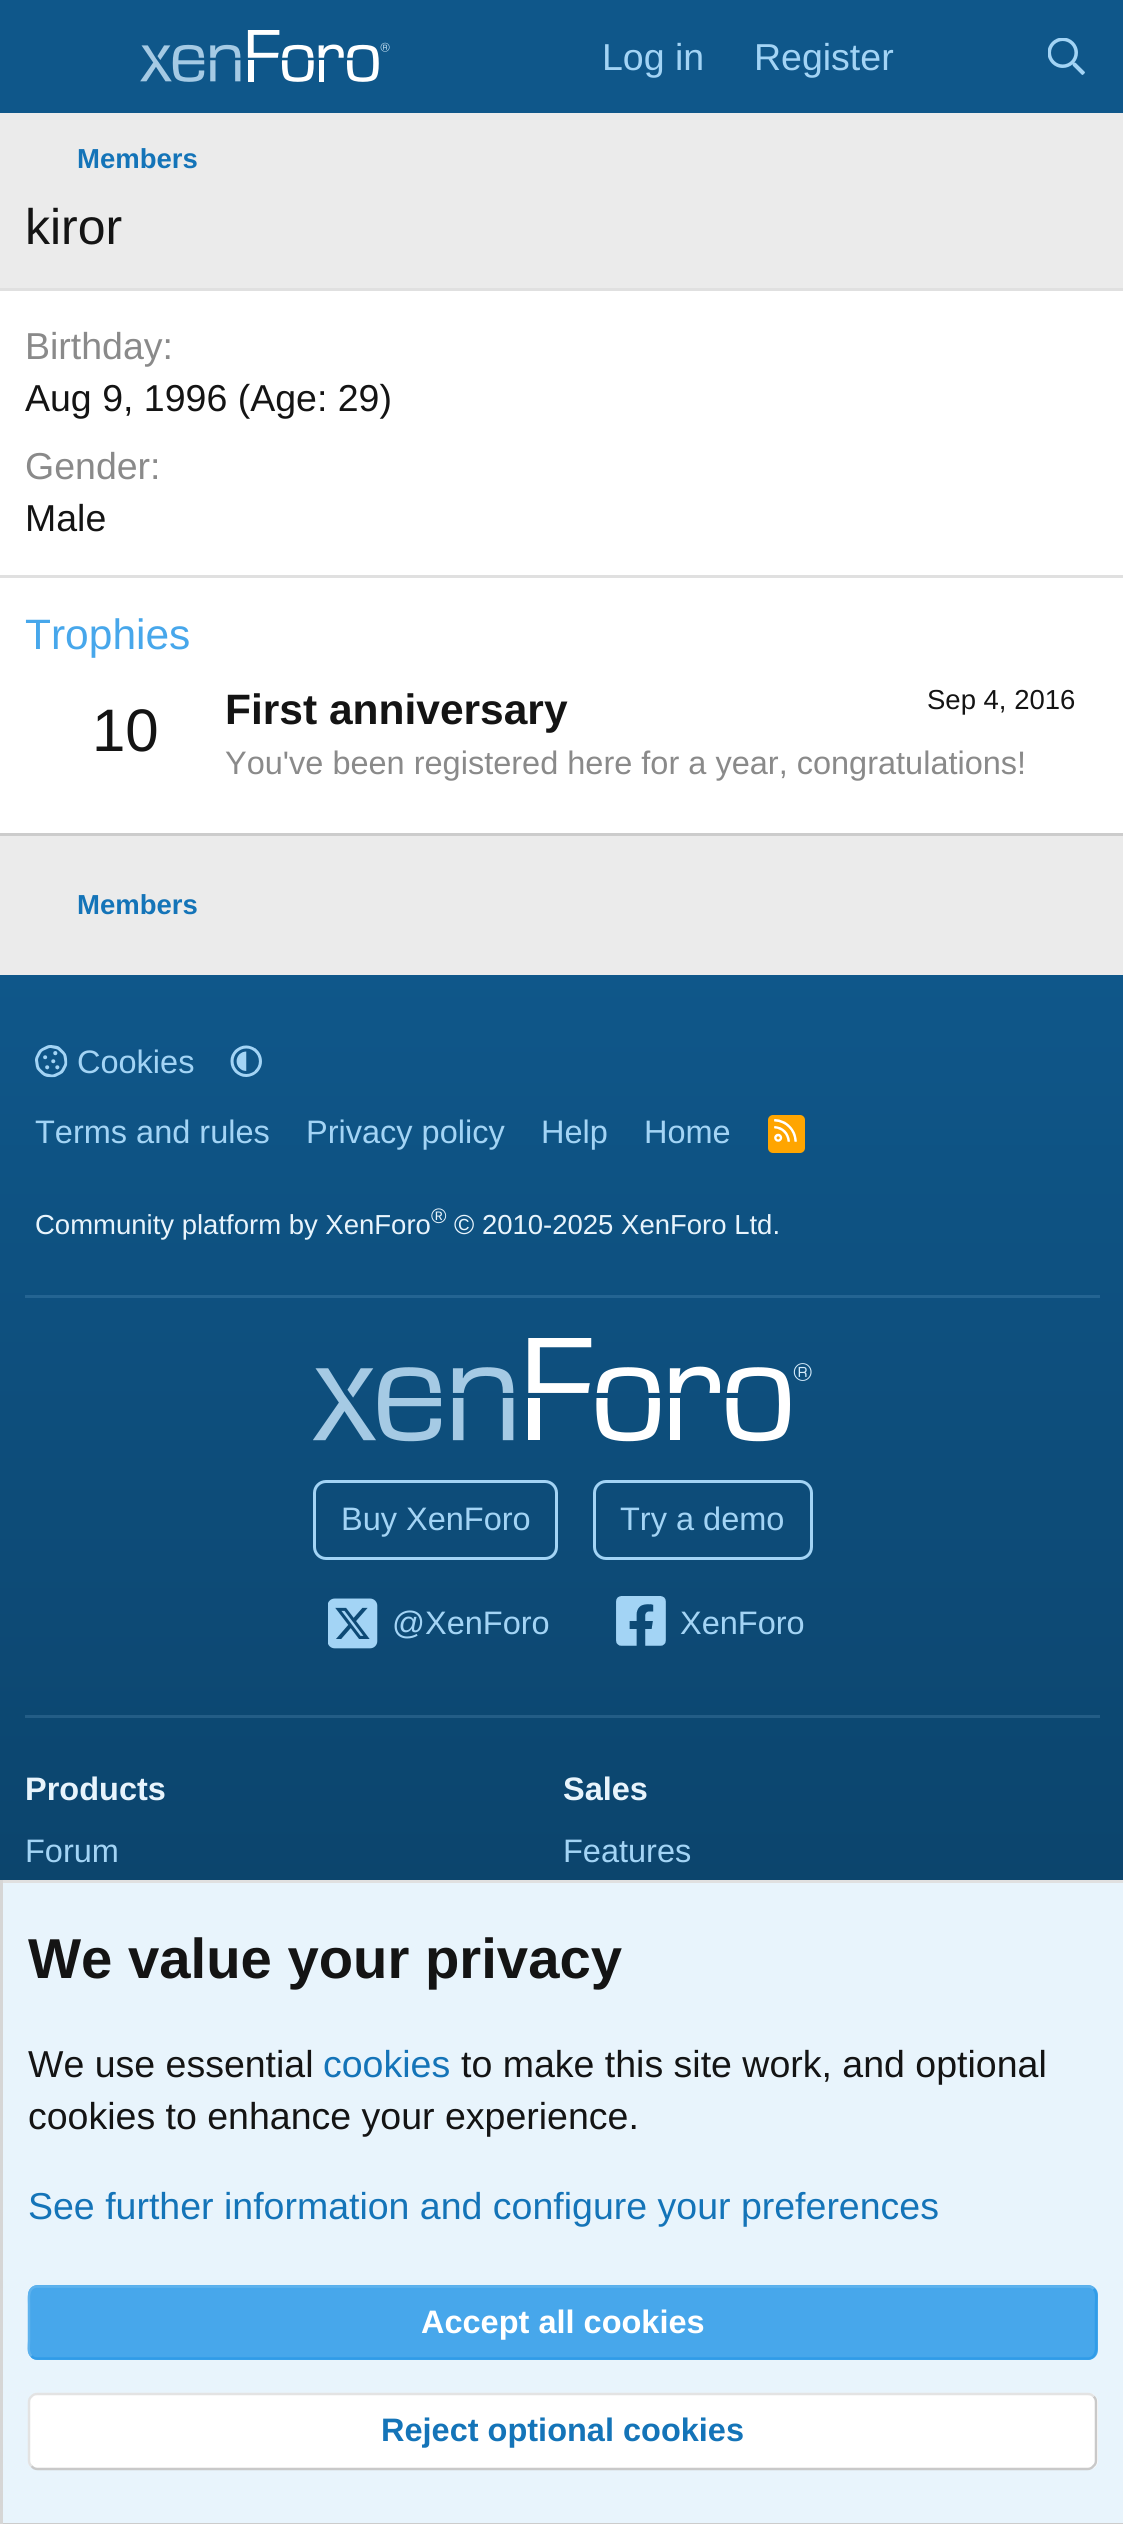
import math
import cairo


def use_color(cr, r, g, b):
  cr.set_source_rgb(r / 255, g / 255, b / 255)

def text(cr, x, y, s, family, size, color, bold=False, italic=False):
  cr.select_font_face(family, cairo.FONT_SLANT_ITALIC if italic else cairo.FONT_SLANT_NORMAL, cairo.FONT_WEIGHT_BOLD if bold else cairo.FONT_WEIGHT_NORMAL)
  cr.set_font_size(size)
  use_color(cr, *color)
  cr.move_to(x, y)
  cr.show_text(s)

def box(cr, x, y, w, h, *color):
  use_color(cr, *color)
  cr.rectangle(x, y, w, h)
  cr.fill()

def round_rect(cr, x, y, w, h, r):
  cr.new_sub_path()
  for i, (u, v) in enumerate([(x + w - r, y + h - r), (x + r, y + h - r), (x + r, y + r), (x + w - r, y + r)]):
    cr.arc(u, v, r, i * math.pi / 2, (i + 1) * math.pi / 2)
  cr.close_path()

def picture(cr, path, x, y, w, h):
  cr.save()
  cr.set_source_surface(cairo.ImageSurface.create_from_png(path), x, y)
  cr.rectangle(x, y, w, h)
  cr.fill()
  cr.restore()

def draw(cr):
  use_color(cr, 235, 235, 235)
  cr.paint()
  box(cr, 0, 0, 1123, 113, 15, 87, 138)
  picture(cr, "img_01.png", 140, 30, 250, 52)
  picture(cr, "img_02.png", 1048, 38, 37, 37)
  box(cr, 0, 291, 1123, 542, 255, 255, 255)
  box(cr, 0, 288, 1123, 3, 224, 224, 224)
  box(cr, 0, 833, 1123, 3, 204, 204, 204)
  box(cr, 0, 575, 1123, 3, 224, 224, 224)
  gradient = cairo.LinearGradient(563, 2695, 563, 975)
  gradient.add_color_stop_rgba(0, 0.035, 0.204, 0.325, 1)
  gradient.add_color_stop_rgba(1, 0.059, 0.341, 0.541, 1)
  cr.set_source(gradient)
  cr.rectangle(0, 975, 1123, 905)
  cr.fill()
  picture(cr, "img_03.png", 35, 1045, 33, 33)
  picture(cr, "img_04.png", 230, 1045, 32, 32)
  use_color(cr, 255, 165, 0)
  round_rect(cr, 768, 1115, 37, 38, 5)
  cr.fill()
  picture(cr, "img_05.png", 774, 1119, 23, 23)
  box(cr, 25, 1295, 1075, 3, 36, 100, 146)
  box(cr, 25, 1715, 1075, 3, 35, 93, 134)
  picture(cr, "img_06.png", 313, 1338, 499, 104)
  round_rect(cr, 314.5, 1481.5, 242, 77, 11.5)
  use_color(cr, 163, 212, 245)
  cr.set_line_width(3)
  cr.stroke()
  round_rect(cr, 594.5, 1481.5, 217, 77, 11.5)
  cr.stroke()
  picture(cr, "img_07.png", 328, 1598, 50, 51)
  picture(cr, "img_08.png", 616, 1596, 50, 50)
  box(cr, 3, 1883, 1120, 640, 232, 244, 252)
  box(cr, 0, 1880, 1123, 3, 224, 224, 224)
  box(cr, 0, 2523, 1123, 1, 204, 204, 204)
  box(cr, 0, 1880, 3, 644, 214, 214, 214)
  use_color(cr, 71, 167, 235)
  round_rect(cr, 28, 2285, 1070, 75, 10)
  cr.fill()
  cr.new_path()
  cr.move_to(1093.5, 2289)
  cr.curve_to(1097.5, 2292.5, 1096, 2299.5, 1096, 2304)
  cr.line_to(1096, 2341)
  cr.curve_to(1096, 2347, 1097.5, 2357, 1089, 2358.5)
  cr.line_to(36.5, 2358.5)
  cr.curve_to(34.5, 2358.5, 32.5, 2357.5, 31.5, 2356)
  use_color(cr, 48, 156, 232)
  cr.set_line_width(2.5)
  cr.stroke()
  cr.new_path()
  cr.move_to(31.5, 2356)
  cr.curve_to(27.5, 2352.5, 29, 2345.5, 29, 2341)
  cr.line_to(29, 2304)
  cr.curve_to(29, 2298, 27.5, 2288, 36, 2286.5)
  cr.line_to(1088.5, 2286.5)
  cr.curve_to(1090.5, 2286.5, 1092.5, 2287.5, 1093.5, 2289)
  use_color(cr, 94, 178, 237)
  cr.stroke()
  use_color(cr, 255, 255, 255)
  round_rect(cr, 28, 2393, 1070, 77, 10)
  cr.fill()
  cr.new_path()
  cr.move_to(1093.5, 2396.5)
  cr.curve_to(1095.5, 2398, 1096, 2400, 1096, 2402.5)
  cr.line_to(1096, 2460)
  cr.curve_to(1096, 2462.5, 1095.5, 2464.5, 1093.5, 2466)
  cr.curve_to(1092, 2468, 1090, 2469, 1087.5, 2469)
  cr.line_to(37.5, 2469)
  cr.curve_to(35, 2469, 33, 2468, 31.5, 2466)
  use_color(cr, 201, 201, 201)
  cr.stroke()
  cr.new_path()
  cr.move_to(31.5, 2466)
  cr.curve_to(29.5, 2464.5, 29, 2462.5, 29, 2460)
  cr.line_to(29, 2402.5)
  cr.curve_to(29, 2400, 29.5, 2398, 31.5, 2396.5)
  cr.curve_to(33, 2394.5, 35, 2394, 37.5, 2394)
  cr.line_to(1087.5, 2394)
  cr.curve_to(1090, 2394, 1092, 2394.5, 1093.5, 2396.5)
  use_color(cr, 227, 227, 227)
  cr.stroke()
  text(cr, 602, 70, "Log in", "Liberation Sans", 37.5, (163, 212, 245))
  text(cr, 754, 70, "Register", "Liberation Sans", 37.5, (163, 212, 245))
  text(cr, 77, 168, "Members", "Liberation Sans", 27.5, (20, 116, 184), bold=True)
  text(cr, 25, 244, "kiror", "Liberation Sans", 50, (20, 20, 20))
  text(cr, 25, 359, "Birthday:", "Liberation Sans", 37.5, (138, 138, 138))
  text(cr, 25, 411, "Aug 9, 1996 (Age: 29)", "Liberation Sans", 37.5, (20, 20, 20))
  text(cr, 25, 479, "Gender:", "Liberation Sans", 37.5, (138, 138, 138))
  text(cr, 25, 531, "Male", "Liberation Sans", 37.5, (20, 20, 20))
  text(cr, 25, 649, "Trophies", "Liberation Sans", 42.5, (71, 167, 235))
  text(cr, 92, 751, "10", "Liberation Sans", 60, (20, 20, 20))
  text(cr, 225, 724, "First anniversary", "Liberation Sans", 42.5, (20, 20, 20), bold=True)
  text(cr, 927, 709, "Sep 4, 2016", "Liberation Sans", 27.5, (20, 20, 20))
  text(cr, 225, 774, "You've been registered here for a year, congratulations!", "Liberation Sans", 32.5, (138, 138, 138))
  text(cr, 77, 914, "Members", "Liberation Sans", 27.5, (20, 116, 184), bold=True)
  text(cr, 77, 1073, "Cookies", "Liberation Sans", 32.5, (163, 212, 245))
  text(cr, 35, 1143, "Terms and rules", "Liberation Sans", 32.5, (163, 212, 245))
  text(cr, 306, 1143, "Privacy policy", "Liberation Sans", 32.5, (163, 212, 245))
  text(cr, 541, 1143, "Help", "Liberation Sans", 32.5, (163, 212, 245))
  text(cr, 644, 1143, "Home", "Liberation Sans", 32.5, (163, 212, 245))
  text(cr, 35, 1234, "Community platform by XenForo", "Liberation Sans", 27.5, (232, 244, 252))
  text(cr, 431, 1223, "®", "Liberation Sans", 21, (232, 244, 252))
  text(cr, 454, 1234, "© 2010-2025 XenForo Ltd.", "Liberation Sans", 27.5, (232, 244, 252))
  text(cr, 341, 1530, "Buy XenForo", "Liberation Sans", 32.5, (163, 212, 245))
  text(cr, 620, 1530, "Try a demo", "Liberation Sans", 32.5, (163, 212, 245))
  text(cr, 392, 1634, "@XenForo", "Liberation Sans", 32.5, (163, 212, 245))
  text(cr, 680, 1634, "XenForo", "Liberation Sans", 32.5, (163, 212, 245))
  text(cr, 25, 1800, "Products", "Liberation Sans", 32.5, (232, 244, 252), bold=True)
  text(cr, 25, 1862, "Forum", "Liberation Sans", 32.5, (163, 212, 245))
  text(cr, 563, 1800, "Sales", "Liberation Sans", 32.5, (232, 244, 252), bold=True)
  text(cr, 563, 1862, "Features", "Liberation Sans", 32.5, (163, 212, 245))
  text(cr, 28, 1978, "We value your privacy", "Liberation Sans", 56.25, (20, 20, 20), bold=True)
  text(cr, 28, 2077, "We use essential", "Liberation Sans", 37.5, (20, 20, 20))
  text(cr, 323, 2077, "cookies", "Liberation Sans", 37.5, (20, 116, 184))
  text(cr, 461, 2077, "to make this site work, and optional", "Liberation Sans", 37.5, (20, 20, 20))
  text(cr, 28, 2129, "cookies to enhance your experience.", "Liberation Sans", 37.5, (20, 20, 20))
  text(cr, 28, 2219, "See further information and configure your preferences", "Liberation Sans", 37.5, (20, 116, 184))
  text(cr, 421, 2333, "Accept all cookies", "Liberation Sans", 32.5, (255, 255, 255), bold=True)
  text(cr, 381, 2441, "Reject optional cookies", "Liberation Sans", 32.5, (20, 116, 184), bold=True)


surface = cairo.ImageSurface(cairo.FORMAT_RGB24, 1123, 2524)
cr = cairo.Context(surface)
options = cairo.FontOptions()
options.set_hint_metrics(cairo.HINT_METRICS_OFF)
options.set_hint_style(cairo.HINT_STYLE_NONE)
cr.set_font_options(options)
cr.set_miter_limit(4)
draw(cr)
surface.write_to_png("out.png")
